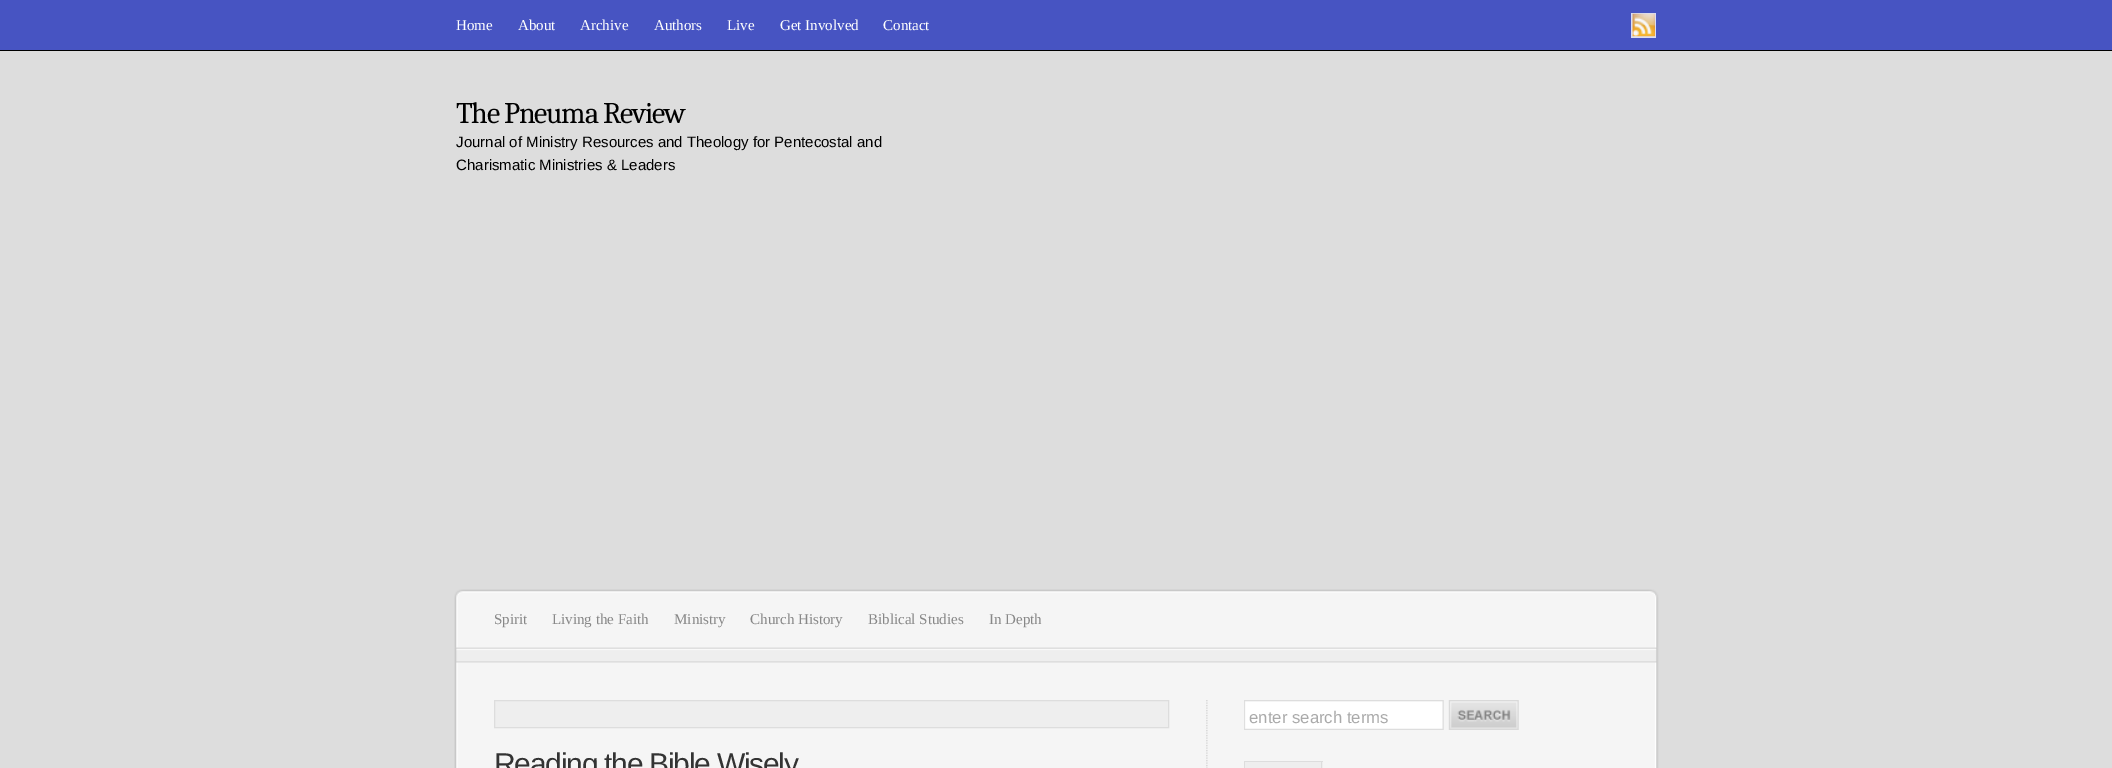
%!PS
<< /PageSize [2112 768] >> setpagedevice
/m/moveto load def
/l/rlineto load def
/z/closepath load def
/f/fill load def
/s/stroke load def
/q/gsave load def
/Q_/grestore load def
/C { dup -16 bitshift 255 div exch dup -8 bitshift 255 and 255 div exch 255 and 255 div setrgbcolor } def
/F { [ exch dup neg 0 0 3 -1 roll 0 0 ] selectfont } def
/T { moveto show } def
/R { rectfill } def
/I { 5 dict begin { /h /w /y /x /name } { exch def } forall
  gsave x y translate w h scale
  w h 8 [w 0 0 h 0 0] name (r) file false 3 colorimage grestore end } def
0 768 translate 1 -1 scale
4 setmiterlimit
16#DDDDDD C
0 0 2112 768 R
16#4754C2 C
0 0 2112 50 R
16#000000 C
0 50 2112 1 R
/LiberationSerif-Regular 15 F
16#FFFFFF C
(Home) 456 30 T
(About) 518 30 T
(Archive) 580 30 T
(Authors) 654 30 T
(Live) 727 30 T
(Get Involved) 780 30 T
(Contact) 883 30 T
16#DADDF3 C
1631 13 25 25 R
(1.rgb) 1632 13 23 24 I
/Caladea-Regular 30 F
16#000000 C
456 123 m -1.25 0 (The Pneuma Review) ashow
/LiberationSans-Regular 15 F
(Journal of Ministry Resources and Theology for Pentecostal and) 456 147 T
(Charismatic Ministries & Leaders) 456 170 T
(3.rgb) 454 647 1205 53 I
(2.rgb) 454 589 1205 59 I
/LiberationSerif-Regular 15 F
16#888888 C
(Spirit) 494 624 T
(Living the Faith) 552 624 T
(Ministry) 674 624 T
(Church History) 750 624 T
(Biblical Studies) 868 624 T
(In Depth) 989 624 T
(4.rgb) 454 700 1205 68 I
(5.rgb) 1206 700 2 68 I
(6.rgb) 1244 700 275 30 I
/LiberationSans-Regular 16.75 F
16#AAAAAA C
(enter search terms) 1249 723 T
16#EEEEEE C
1244 762 79 6 R
16#DDDDDD C
1244 761 79 1 R
1321 761 1 7 R
1244 761 1 7 R
16#EEEEEE C
494.5 700.5 m 674 0 l 0 27 l -674 0 l z q f Q_
16#DDDDDD C
s
/LiberationSans-Regular 30 F
16#333333 C
494 774 m -1.25 0 (Reading the Bible Wisely) ashow
showpage
